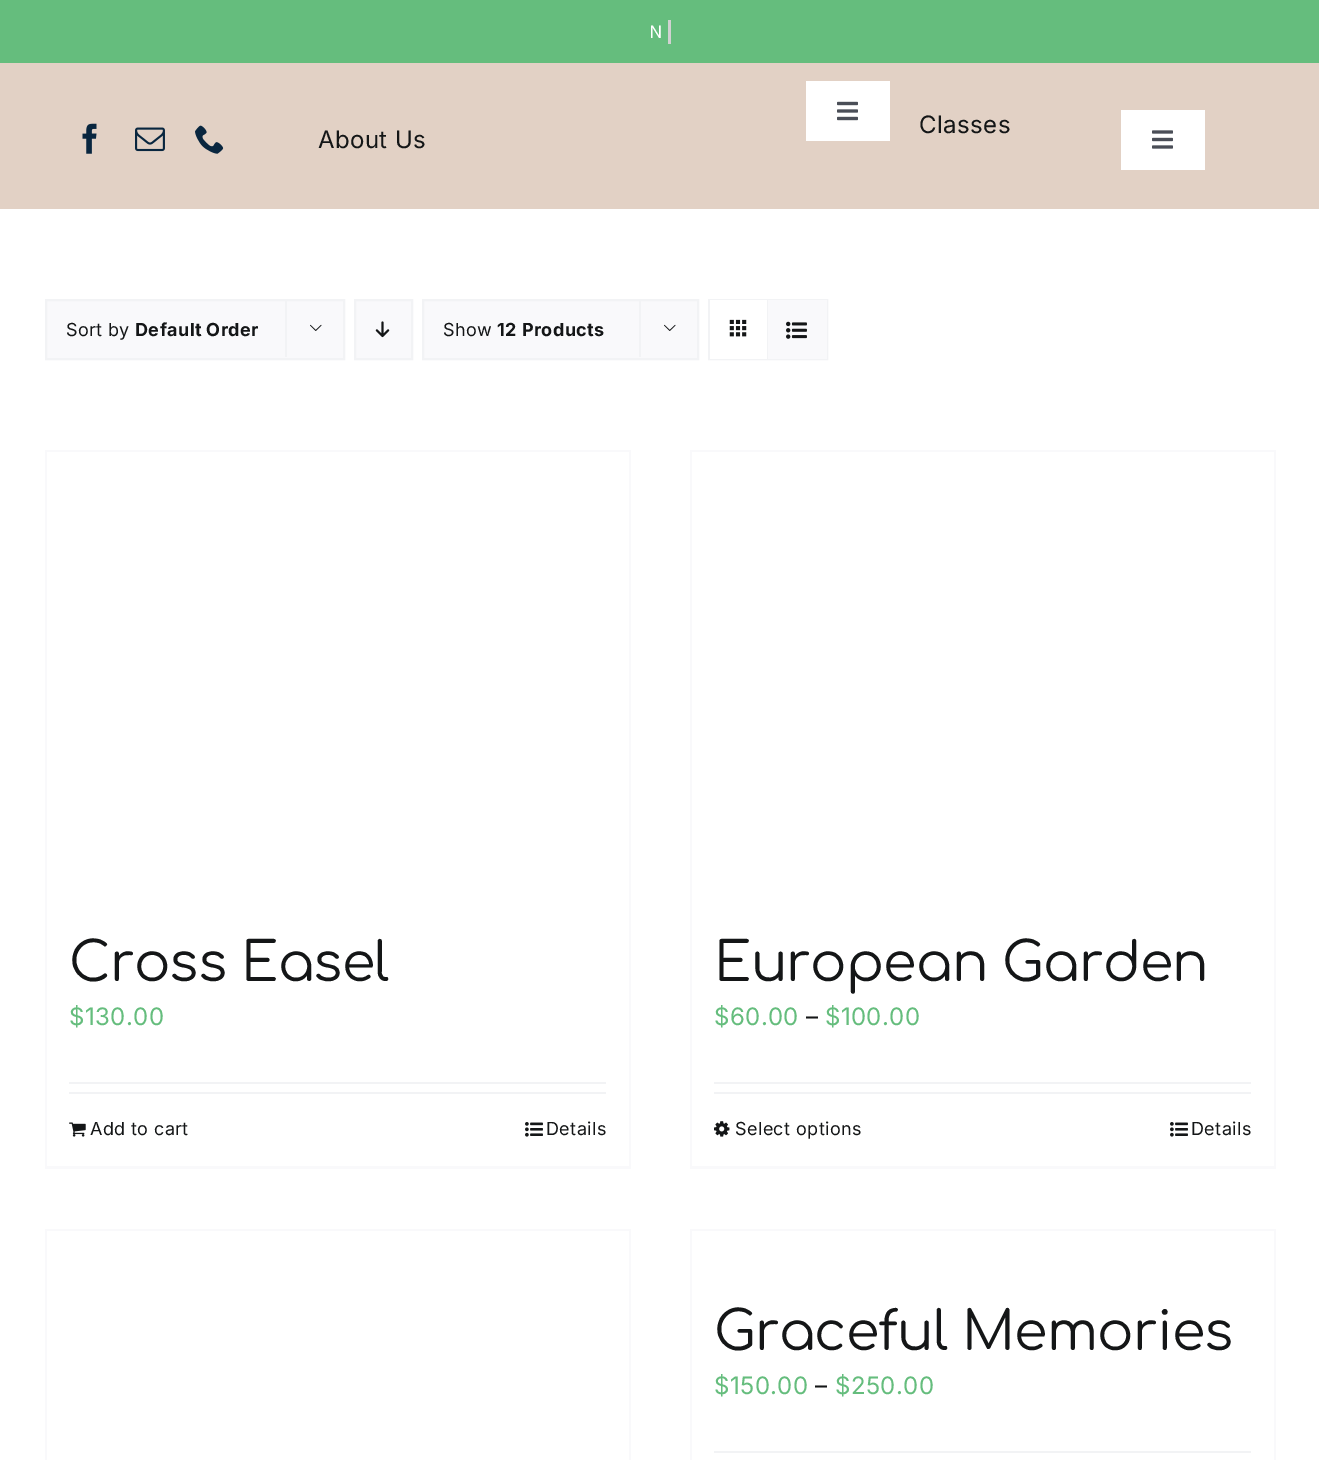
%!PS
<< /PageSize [1319 1460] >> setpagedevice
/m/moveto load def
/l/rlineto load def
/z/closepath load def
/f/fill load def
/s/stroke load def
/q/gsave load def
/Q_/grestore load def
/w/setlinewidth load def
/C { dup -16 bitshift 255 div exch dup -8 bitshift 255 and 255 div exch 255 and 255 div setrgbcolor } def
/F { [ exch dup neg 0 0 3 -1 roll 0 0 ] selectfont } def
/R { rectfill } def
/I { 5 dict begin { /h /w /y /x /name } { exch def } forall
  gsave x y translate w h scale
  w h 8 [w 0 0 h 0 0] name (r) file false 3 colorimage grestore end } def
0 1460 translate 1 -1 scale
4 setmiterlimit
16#FFFFFF C
0 0 1319 1460 R
16#65BD7D C
0 0 1319 63 R
/Karla-Regular 20 F
16#FFFFFF C
649 38 m 1 0 (N) ashow
16#D1D1D1 C
668 20 3 24 R
16#E2D1C5 C
0 63 1319 146 R
(1.rgb) 82 123 15 31 I
(2.rgb) 135 127 30 25 I
(3.rgb) 195 125 29 29 I
/Inter-Regular 24 F
16#141617 C
318 148 m .4 0 (About Us) ashow
16#FFFFFF C
806 81 84 60 R
(4.rgb) 837 101 21 20 I
16#141617 C
919 133 m .4 0 (Classes) ashow
16#FFFFFF C
1121 110 84 60 R
(5.rgb) 1152 130 21 19 I
16#F9F9FB C
46 300 m 298 0 l 0 59 l -298 0 l z q f Q_
16#F2F3F5 C
2 w
s
/Inter-Regular 18 F
16#141617 C
66 336 m .4 0 (Sort by) ashow
/Inter-Bold 18 F
135 336 m .4 0 (Default Order) ashow
16#F2F3F5 C
285 299 2 58 R
(6.rgb) 310 324 12 7 I
16#F9F9FB C
355 300 m 57 0 l 0 59 l -57 0 l z q f Q_
16#F2F3F5 C
s
(7.rgb) 375 321 15 17 I
16#F9F9FB C
423 300 m 275 0 l 0 59 l -275 0 l z q f Q_
16#F2F3F5 C
s
/Inter-Regular 18 F
16#141617 C
443 336 m .4 0 (Show) ashow
/Inter-Bold 18 F
497 336 m .4 0 (12 Products) ashow
16#F2F3F5 C
639 299 2 58 R
(6.rgb) 664 324 12 7 I
709 300 118 59 rectstroke
16#FFFFFF C
710 300 57 59 R
16#F2F3F5 C
767 300 1 59 R
(8.rgb) 729 319 18 18 I
16#F9F9FB C
768 300 59 59 R
(9.rgb) 786 321 21 18 I
45 450 585 2 R
629 450 2 719 R
45 1166 585 3 R
45 450 2 719 R
/Comfortaa-Regular 54 F
16#141617 C
69 981 m -.8 0 (Cross Easel) ashow
/Inter-Regular 24 F
16#65BD7D C
69 1025 m .4 0 ($130.00) ashow
16#F2F3F5 C
69 1082 537 2 R
69 1092 537 2 R
(10.rgb) 69 1122 17 15 I
/Inter-Regular 18 F
16#141617 C
90 1135 m .4 0 (Add to cart) ashow
(11.rgb) 525 1122 18 15 I
546 1135 m .4 0 (Details) ashow
16#F9F9FB C
690 450 585 2 R
1274 450 2 719 R
690 1166 585 3 R
690 450 2 719 R
/Comfortaa-Regular 54 F
16#141617 C
714 981 m -.8 0 (European Garden) ashow
/Inter-Regular 24 F
16#65BD7D C
714 1025 m .4 0 ($60.00) ashow
16#141617 C
806 1025 m .4 0 (–) ashow
16#65BD7D C
825 1025 m .4 0 ($100.00) ashow
16#F2F3F5 C
714 1082 537 2 R
714 1092 537 2 R
(12.rgb) 714 1121 16 16 I
/Inter-Regular 18 F
16#141617 C
735 1135 m .4 0 (Select options) ashow
(11.rgb) 1170 1122 18 15 I
1191 1135 m .4 0 (Details) ashow
16#F9F9FB C
45 1229 585 2 R
629 1229 2 231 R
45 1229 2 231 R
690 1229 585 2 R
1274 1229 2 231 R
690 1229 2 231 R
/Comfortaa-Regular 54 F
16#141617 C
714 1350 m -.8 0 (Graceful Memories) ashow
/Inter-Regular 24 F
16#65BD7D C
714 1394 m .4 0 ($150.00) ashow
16#141617 C
815 1394 m .4 0 (–) ashow
16#65BD7D C
835 1394 m .4 0 ($250.00) ashow
16#F2F3F5 C
714 1451 537 2 R
showpage
